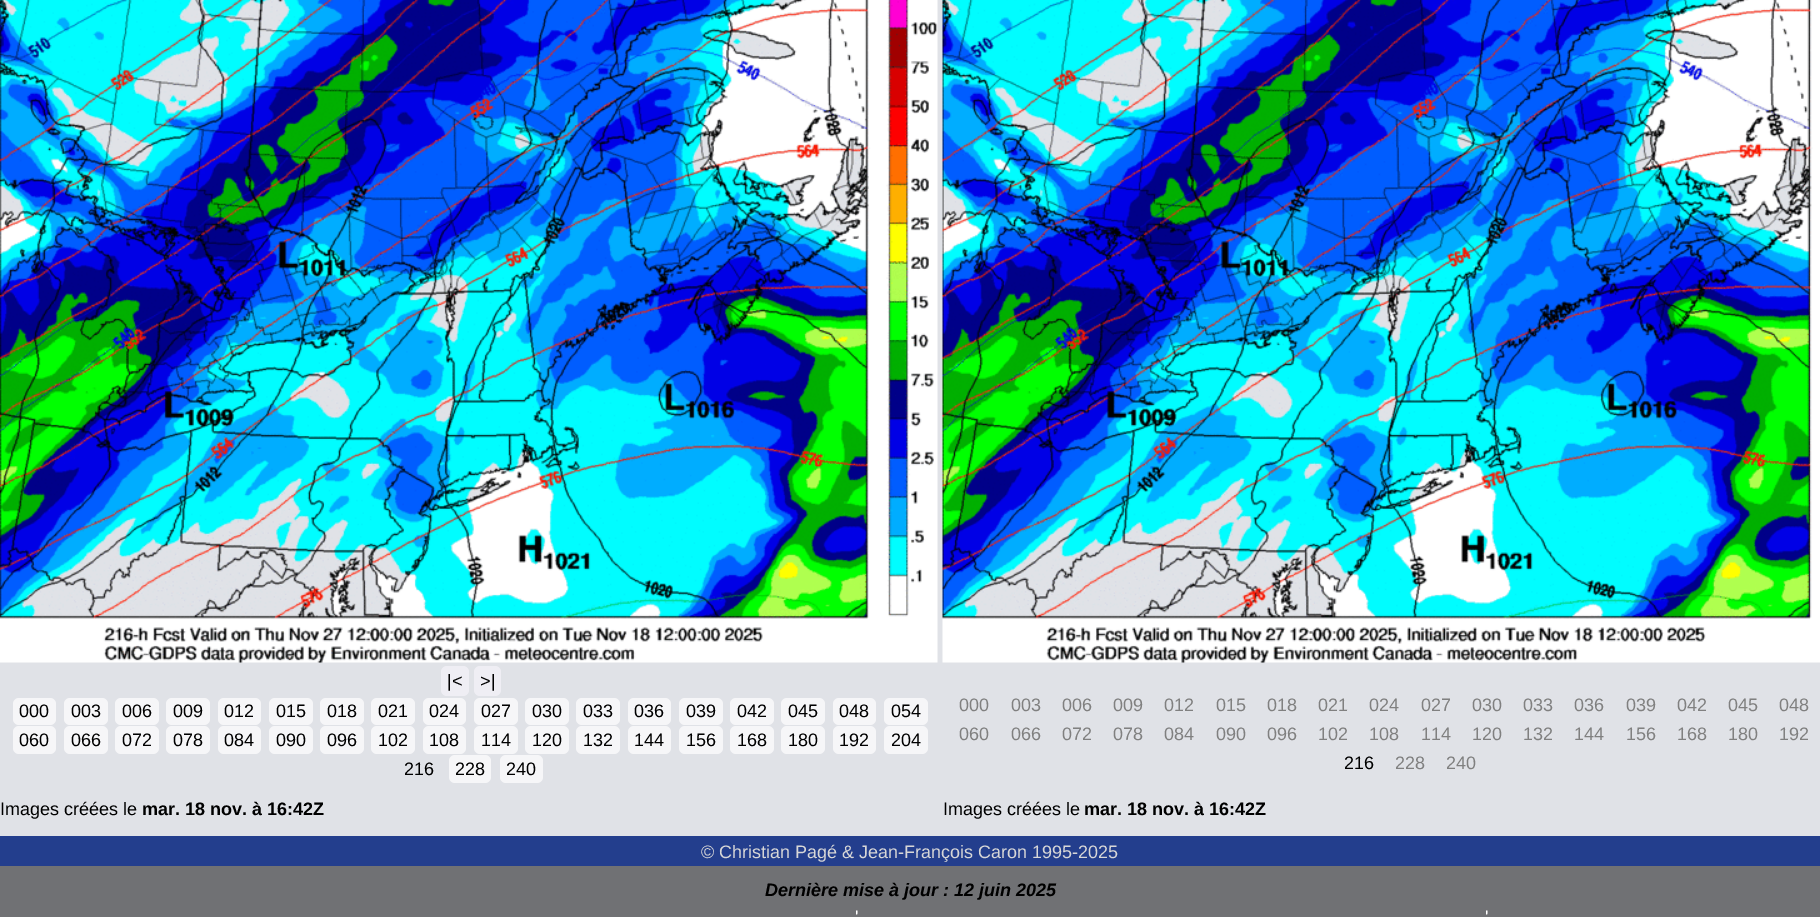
%!PS
<< /PageSize [1820 917] >> setpagedevice
/f/fill load def
/C { dup -16 bitshift 255 div exch dup -8 bitshift 255 and 255 div exch 255 and 255 div setrgbcolor } def
/F { [ exch dup neg 0 0 3 -1 roll 0 0 ] selectfont } def
/T { moveto show } def
/R { rectfill } def
/Q { 5 dict begin { /r /h /w /y /x } { exch def } forall
  x r add y moveto x w add y 2 copy h add r arct x w add y h add x 1 index r arct
  x y h add x y r arct x y 2 copy exch w add exch r arct closepath end } def
/I { 5 dict begin { /h /w /y /x /name } { exch def } forall
  gsave x y translate w h scale
  w h 8 [w 0 0 h 0 0] name (r) file false 3 colorimage grestore end } def
0 917 translate 1 -1 scale
4 setmiterlimit
16#E0E2E7 C
0 0 1820 917 R
(1.rgb) 0 0 938 663 I
(2.rgb) 942 0 878 663 I
16#EFEEF4 C
441 666 28 30 6 Q f
/LiberationSans-Regular 18 F
16#000000 C
(|<) 447 687 T
16#EFEEF4 C
474 666 27 30 6 Q f
16#000000 C
(>|) 480 687 T
16#F6F6F8 C
13 698 43 27 6 Q f
16#000000 C
(000) 19 717 T
16#F6F6F8 C
64 698 44 27 6 Q f
16#000000 C
(003) 71 717 T
16#F6F6F8 C
115 698 44 27 6 Q f
16#000000 C
(006) 122 717 T
16#F6F6F8 C
166 698 44 27 6 Q f
16#000000 C
(009) 173 717 T
16#F6F6F8 C
218 698 43 27 6 Q f
16#000000 C
(012) 224 717 T
16#F6F6F8 C
269 698 44 27 6 Q f
16#000000 C
(015) 276 717 T
16#F6F6F8 C
320 698 44 27 6 Q f
16#000000 C
(018) 327 717 T
16#F6F6F8 C
371 698 44 27 6 Q f
16#000000 C
(021) 378 717 T
16#F6F6F8 C
423 698 43 27 6 Q f
16#000000 C
(024) 429 717 T
16#F6F6F8 C
474 698 44 27 6 Q f
16#000000 C
(027) 481 717 T
16#F6F6F8 C
525 698 44 27 6 Q f
16#000000 C
(030) 532 717 T
16#F6F6F8 C
576 698 44 27 6 Q f
16#000000 C
(033) 583 717 T
16#F6F6F8 C
628 698 43 27 6 Q f
16#000000 C
(036) 634 717 T
16#F6F6F8 C
679 698 44 27 6 Q f
16#000000 C
(039) 686 717 T
16#F6F6F8 C
730 698 44 27 6 Q f
16#000000 C
(042) 737 717 T
16#F6F6F8 C
781 698 44 27 6 Q f
16#000000 C
(045) 788 717 T
16#F6F6F8 C
833 698 43 27 6 Q f
16#000000 C
(048) 839 717 T
16#F6F6F8 C
884 698 44 27 6 Q f
16#000000 C
(054) 891 717 T
16#F6F6F8 C
13 726 43 28 6 Q f
16#000000 C
(060) 19 746 T
16#F6F6F8 C
64 726 44 28 6 Q f
16#000000 C
(066) 71 746 T
16#F6F6F8 C
115 726 44 28 6 Q f
16#000000 C
(072) 122 746 T
16#F6F6F8 C
166 726 44 28 6 Q f
16#000000 C
(078) 173 746 T
16#F6F6F8 C
218 726 43 28 6 Q f
16#000000 C
(084) 224 746 T
16#F6F6F8 C
269 726 44 28 6 Q f
16#000000 C
(090) 276 746 T
16#F6F6F8 C
320 726 44 28 6 Q f
16#000000 C
(096) 327 746 T
16#F6F6F8 C
371 726 44 28 6 Q f
16#000000 C
(102) 378 746 T
16#F6F6F8 C
423 726 43 28 6 Q f
16#000000 C
(108) 429 746 T
16#F6F6F8 C
474 726 44 28 6 Q f
16#000000 C
(114) 481 746 T
16#F6F6F8 C
525 726 44 28 6 Q f
16#000000 C
(120) 532 746 T
16#F6F6F8 C
576 726 44 28 6 Q f
16#000000 C
(132) 583 746 T
16#F6F6F8 C
628 726 43 28 6 Q f
16#000000 C
(144) 634 746 T
16#F6F6F8 C
679 726 44 28 6 Q f
16#000000 C
(156) 686 746 T
16#F6F6F8 C
730 726 44 28 6 Q f
16#000000 C
(168) 737 746 T
16#F6F6F8 C
781 726 44 28 6 Q f
16#000000 C
(180) 788 746 T
16#F6F6F8 C
833 726 43 28 6 Q f
16#000000 C
(192) 839 746 T
16#F6F6F8 C
884 726 44 28 6 Q f
16#000000 C
(204) 891 746 T
(216) 404 775 T
16#F6F6F8 C
449 755 42 28 6 Q f
16#000000 C
(228) 455 775 T
16#F6F6F8 C
500 755 43 28 6 Q f
16#000000 C
(240) 506 775 T
16#808080 C
(000) 959 711 T
(003) 1011 711 T
(006) 1062 711 T
(009) 1113 711 T
(012) 1164 711 T
(015) 1216 711 T
(018) 1267 711 T
(021) 1318 711 T
(024) 1369 711 T
(027) 1421 711 T
(030) 1472 711 T
(033) 1523 711 T
(036) 1574 711 T
(039) 1626 711 T
(042) 1677 711 T
(045) 1728 711 T
(048) 1779 711 T
(060) 959 740 T
(066) 1011 740 T
(072) 1062 740 T
(078) 1113 740 T
(084) 1164 740 T
(090) 1216 740 T
(096) 1267 740 T
(102) 1318 740 T
(108) 1369 740 T
(114) 1421 740 T
(120) 1472 740 T
(132) 1523 740 T
(144) 1574 740 T
(156) 1626 740 T
(168) 1677 740 T
(180) 1728 740 T
(192) 1779 740 T
16#000000 C
(216) 1344 769 T
16#808080 C
(228) 1395 769 T
(240) 1446 769 T
16#000000 C
(Images créées le) 0 815 T
/LiberationSans-Bold 18 F
(mar. 18 nov. à 16:42Z) 142 815 T
/LiberationSans-Regular 18 F
(Images créées le) 943 815 T
/LiberationSans-Bold 18 F
(mar. 18 nov. à 16:42Z) 1084 815 T
16#233E8D C
0 836 1820 30 R
/LiberationSans-Regular 18 F
16#D7D7D7 C
(© Christian Pagé & Jean-François Caron 1995-2025) 701 858 T
16#707174 C
0 866 1820 51 R
/LiberationSans-BoldItalic 18 F
16#000000 C
(Dernière mise à jour : 12 juin 2025) 765 896 T
/LiberationSans-Regular 18 F
16#FFFFFF C
(') 855 923 T
(') 1485 923 T
showpage
